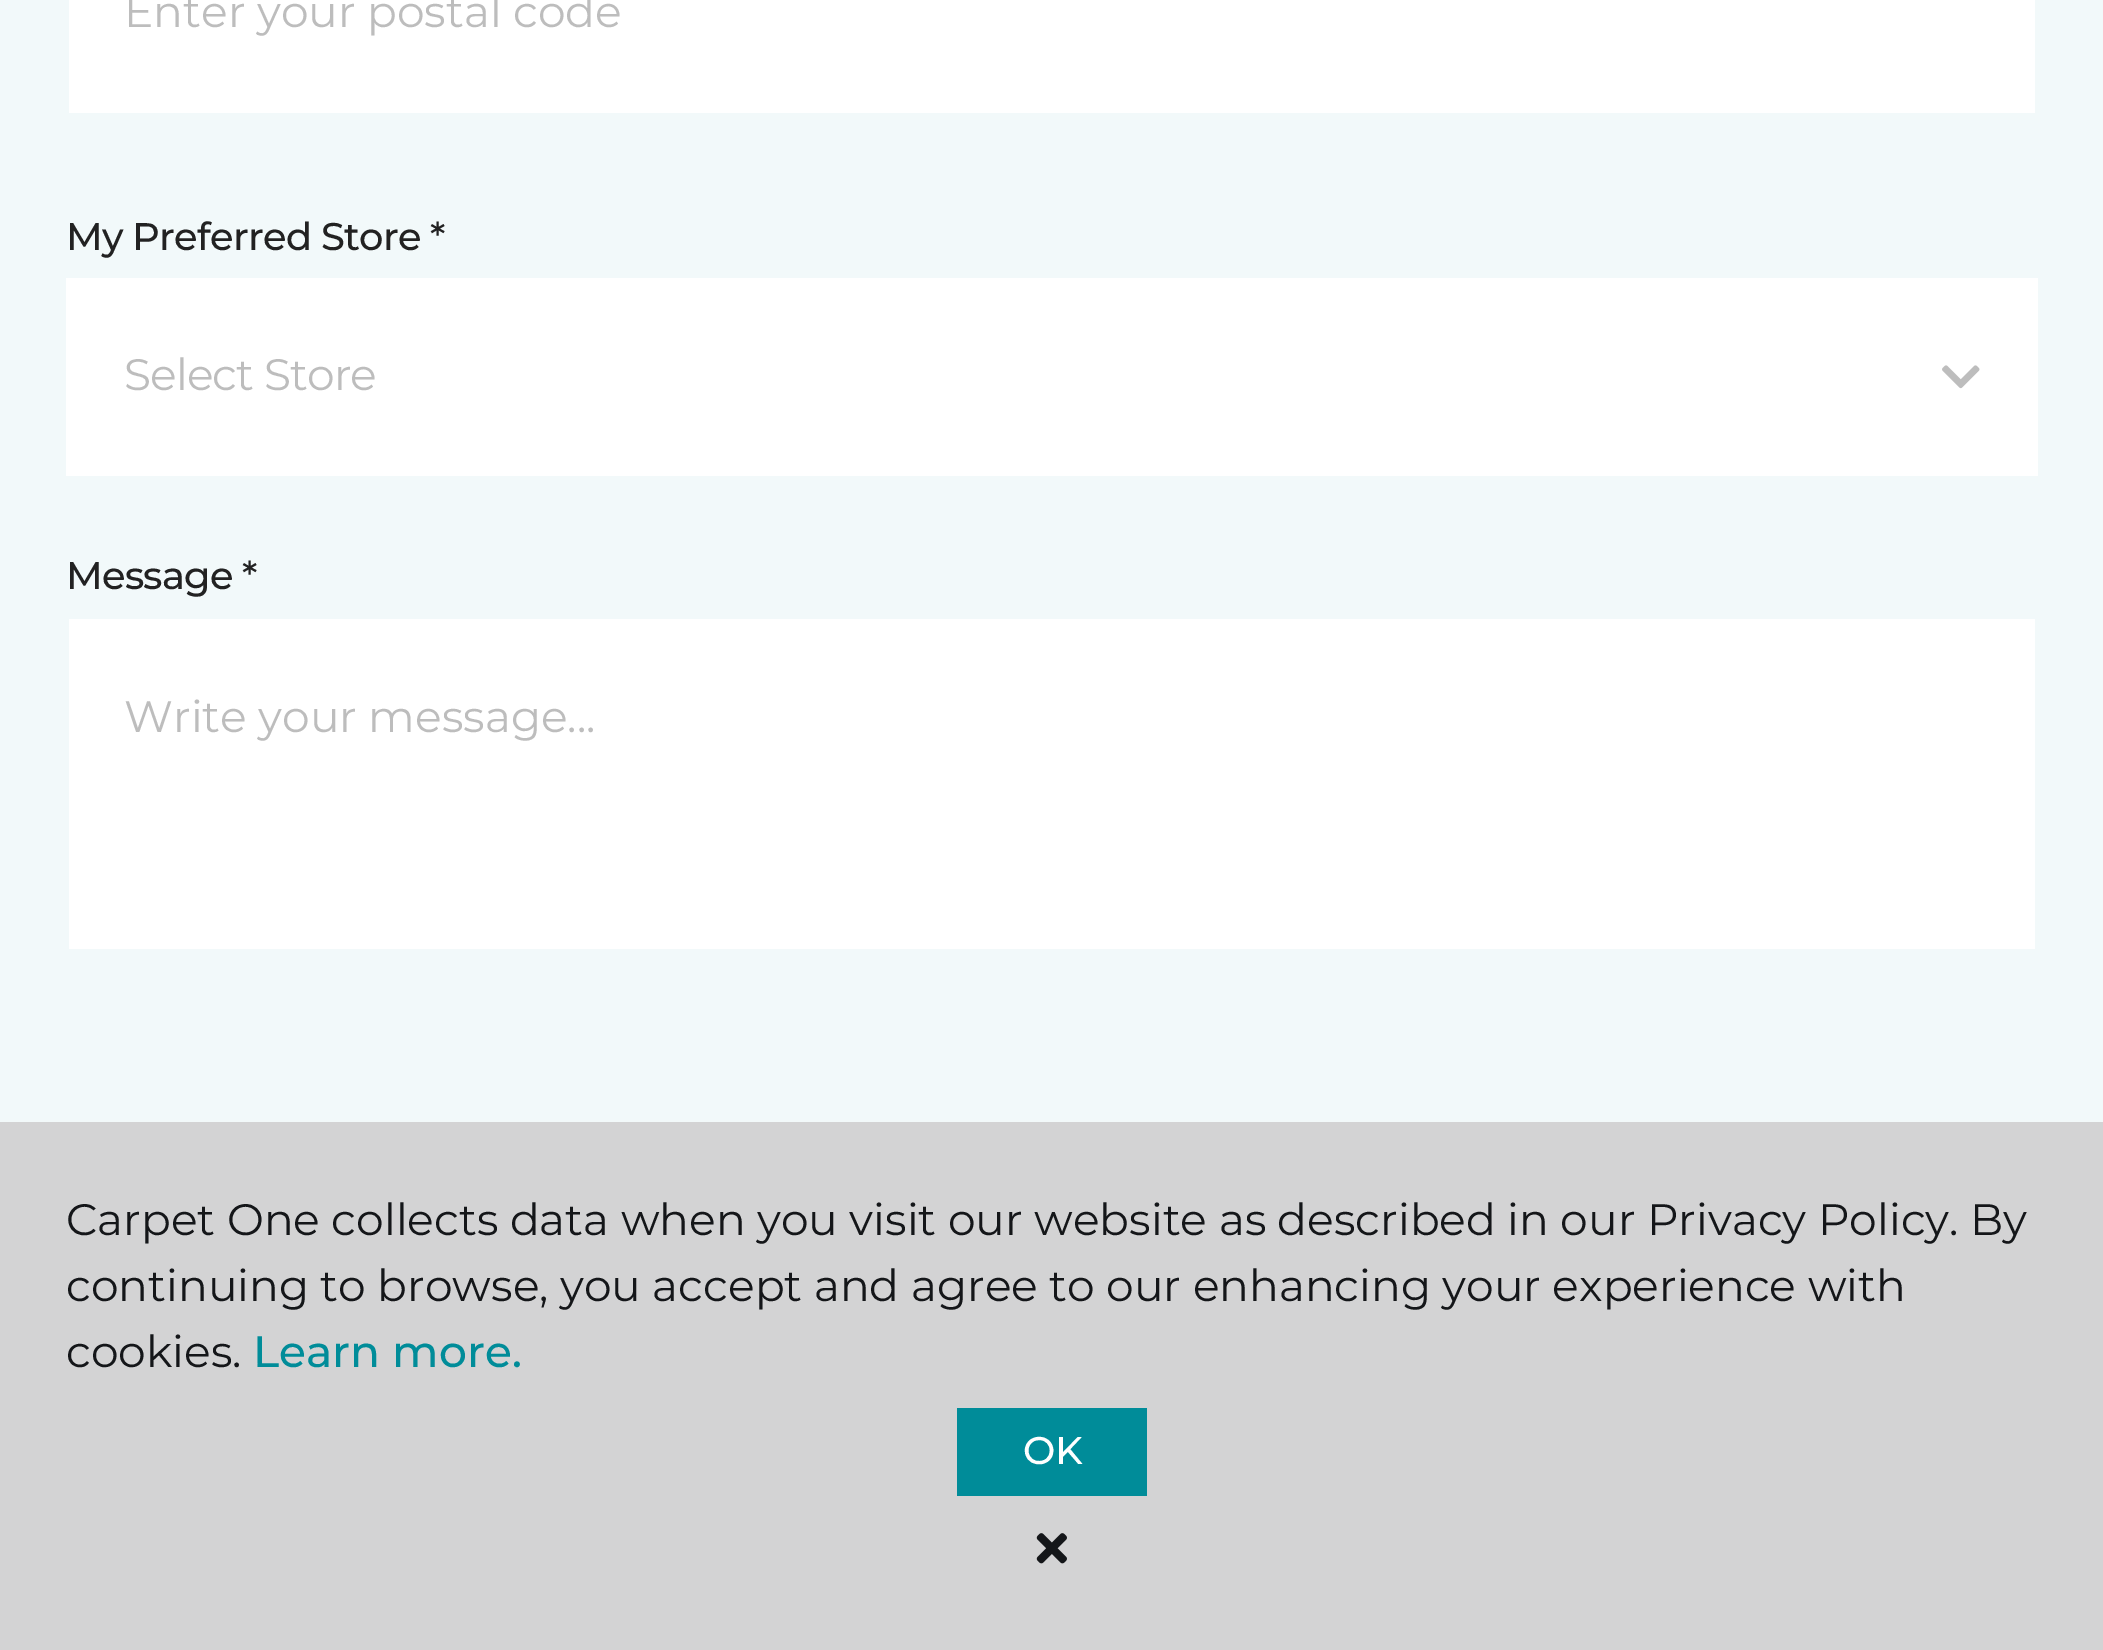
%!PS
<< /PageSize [2103 1650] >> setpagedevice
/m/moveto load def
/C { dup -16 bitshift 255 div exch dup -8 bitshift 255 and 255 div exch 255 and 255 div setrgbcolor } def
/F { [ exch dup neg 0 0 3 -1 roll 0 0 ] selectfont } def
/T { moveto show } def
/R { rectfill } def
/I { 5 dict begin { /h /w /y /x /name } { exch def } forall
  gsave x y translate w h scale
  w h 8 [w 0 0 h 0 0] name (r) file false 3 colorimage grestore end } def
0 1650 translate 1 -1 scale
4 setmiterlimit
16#F2F9FA C
0 0 2103 1650 R
16#FFFFFF C
69 0 1966 113 R
/Montserrat-Regular 44 F
16#BDBDBD C
(Enter your postal code) 124 27 T
/Montserrat-Medium 38.5 F
16#222222 C
66 250 m -.75 0 (My Preferred Store *) ashow
16#FFFFFF C
66 278 1972 198 R
/Montserrat-Regular 44 F
16#BDBDBD C
124 390 m -.9 0 (Select Store) ashow
(1.rgb) 1942 365 38 24 I
/Montserrat-Medium 38.5 F
16#222222 C
66 589 m -.75 0 (Message *) ashow
16#FFFFFF C
69 619 1966 330 R
/Montserrat-Regular 44 F
16#BDBDBD C
(Write your message...) 124 732 T
16#D3D3D4 C
0 1122 2103 528 R
16#141619 C
(Carpet One collects data when you visit our website as described in our Privacy Policy. By) 66 1235 T
(continuing to browse, you accept and agree to our enhancing your experience with) 66 1301 T
(cookies.) 66 1367 T
/Montserrat-Medium 44 F
16#008C99 C
(Learn more.) 253 1367 T
957 1408 190 88 R
/Montserrat-Medium 38.5 F
16#FFFFFF C
1023 1464 m -.75 0 (OK) ashow
(2.rgb) 1036 1533 31 31 I
showpage
